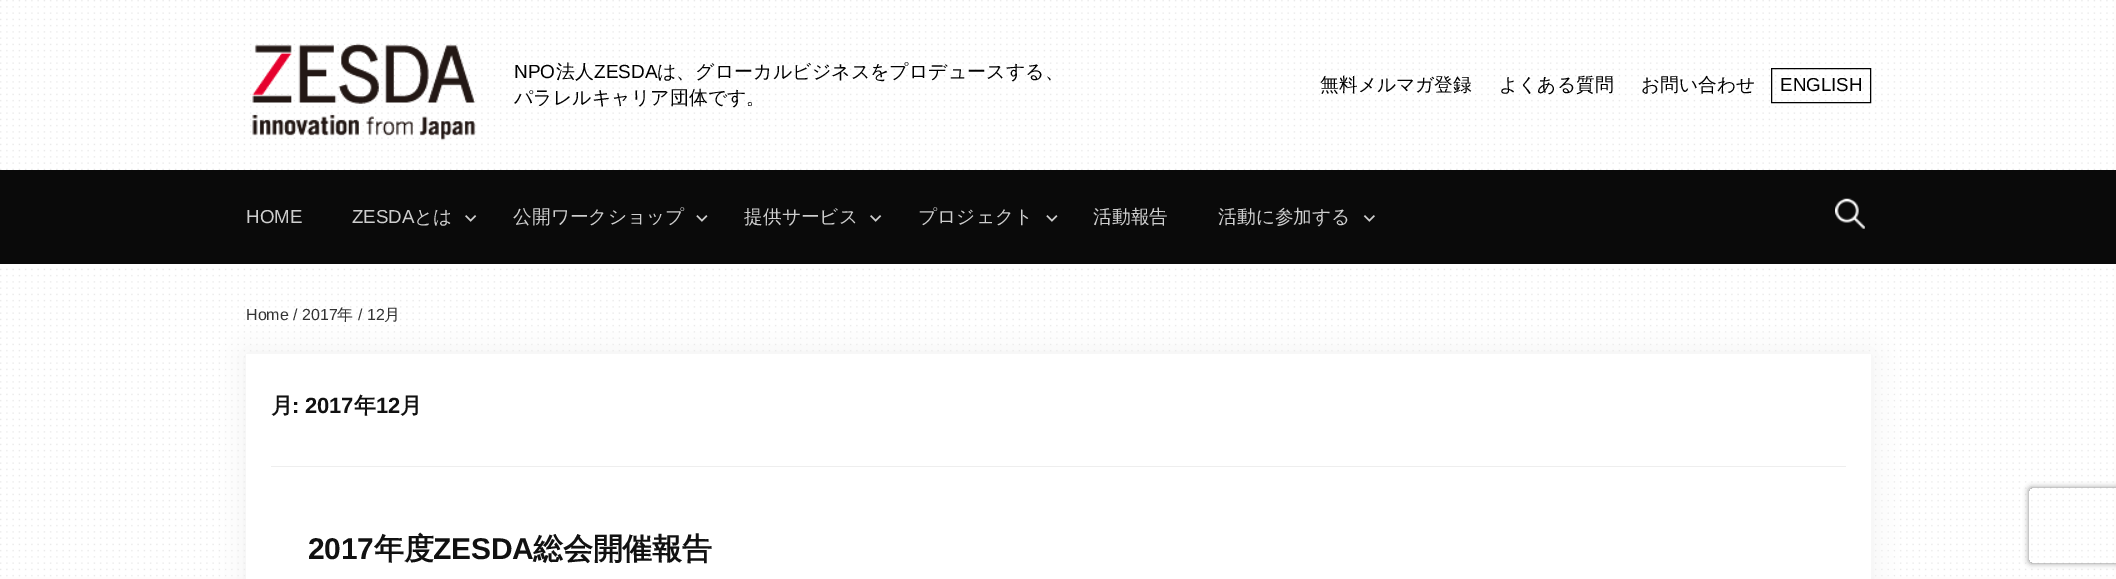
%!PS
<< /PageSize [2116 579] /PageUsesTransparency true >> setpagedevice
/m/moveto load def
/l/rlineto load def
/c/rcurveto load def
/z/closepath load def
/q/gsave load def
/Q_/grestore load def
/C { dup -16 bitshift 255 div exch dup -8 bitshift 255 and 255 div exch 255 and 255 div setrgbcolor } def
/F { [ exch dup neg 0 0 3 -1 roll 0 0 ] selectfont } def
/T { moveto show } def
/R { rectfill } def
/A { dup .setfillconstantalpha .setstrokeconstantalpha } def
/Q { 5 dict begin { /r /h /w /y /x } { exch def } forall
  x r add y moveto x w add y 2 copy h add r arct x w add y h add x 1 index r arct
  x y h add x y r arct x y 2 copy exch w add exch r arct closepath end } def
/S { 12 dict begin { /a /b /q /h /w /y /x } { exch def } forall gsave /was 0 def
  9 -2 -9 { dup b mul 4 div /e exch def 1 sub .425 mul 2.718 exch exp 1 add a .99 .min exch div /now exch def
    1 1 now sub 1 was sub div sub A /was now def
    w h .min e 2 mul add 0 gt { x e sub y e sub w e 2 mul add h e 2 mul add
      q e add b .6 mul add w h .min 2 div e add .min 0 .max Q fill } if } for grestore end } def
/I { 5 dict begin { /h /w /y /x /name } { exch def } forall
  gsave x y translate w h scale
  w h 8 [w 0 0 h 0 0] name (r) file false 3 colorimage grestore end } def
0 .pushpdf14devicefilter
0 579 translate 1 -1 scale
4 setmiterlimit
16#FFFCFC C
0 0 2116 579 R
(1.rgb) 0 0 2114 577 I
(2.rgb) 252 43 224 98 I
/LiberationSans-Regular 19 F
16#000000 C
(NPO) 514 78 T
/WenQuanYiZenHei-Medium 19 F
(法人) 556 78 T
/LiberationSans-Regular 19 F
(ZESDA) 594 78 T
/WenQuanYiZenHei-Medium 19 F
(は、グローカルビジネスをプロデュースする、) 657 78 T
(パラレルキャリア団体です。) 514 104 T
/WenQuanYiZenHei-Medium 18.75 F
(無料メルマガ登録) 1320 91 T
(よくある質問) 1499 91 T
(お問い合わせ) 1641 91 T
1771.5 68.5 99 34 rectstroke
/LiberationSans-Regular 18.75 F
(ENGLISH) 1780 91 T
16#0A0A0A C
0 170 2116 94 R
16#CECECE C
(HOME) 246 223 T
(ZESDA) 352 223 T
/WenQuanYiZenHei-Medium 18.75 F
(とは) 414 223 T
(3.rgb) 465 215 12 7 I
(公開ワークショップ) 513 223 T
(4.rgb) 696 215 12 7 I
(提供サービス) 744 223 T
(3.rgb) 870 215 12 7 I
(プロジェクト) 918 223 T
(4.rgb) 1046 215 12 7 I
(活動報告) 1093 223 T
(活動に参加する) 1218 223 T
(5.rgb) 1363 215 12 7 I
(6.rgb) 1835 198 30 31 I
16#EEEEEE C
246 354 1625 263 0 12.5 1 S
/LiberationSans-Regular 16 F
16#333333 C
(Home / 2017) 246 320 T
/WenQuanYiZenHei-Medium 16 F
(年) 337 320 T
/LiberationSans-Regular 16 F
(/ 12) 358 320 T
/WenQuanYiZenHei-Medium 16 F
(月) 384 320 T
16#FFFFFF C
246 354 1625 225 R
16#EEEEEE C
271 466 1575 1 R
/WenQuanYiZenHei-Bold 22 F
16#111111 C
271 413 m -.25 0 (月) ashow
/LiberationSans-Bold 22 F
292 413 m -.25 0 (: 2017) ashow
/WenQuanYiZenHei-Bold 22 F
354 413 m -.25 0 (年) ashow
/LiberationSans-Bold 22 F
376 413 m -.25 0 (12) ashow
/WenQuanYiZenHei-Bold 22 F
400 413 m -.25 0 (月) ashow
/LiberationSans-Bold 30 F
308 559 m -.25 0 (2017) ashow
/WenQuanYiZenHei-Bold 30 F
374 559 m -.25 0 (年度) ashow
/LiberationSans-Bold 30 F
433 559 m -.25 0 (ZESDA) ashow
/WenQuanYiZenHei-Bold 30 F
533 559 m -.25 0 (総会開催報告) ashow
q
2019 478 m 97 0 l 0 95 l -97 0 l z 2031.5 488 m 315 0 l 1.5 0 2.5 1 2.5 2.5 c 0 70 l 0 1.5 -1 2.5 -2.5 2.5 c -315 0 l -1.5 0 -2.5 -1 -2.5 -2.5 c 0 -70 l 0 -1.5 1 -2.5 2.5 -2.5 c z eoclip newpath
16#808080 C
2029 488 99 75 2.5 3 1 S
Q_
.poppdf14devicefilter showpage
